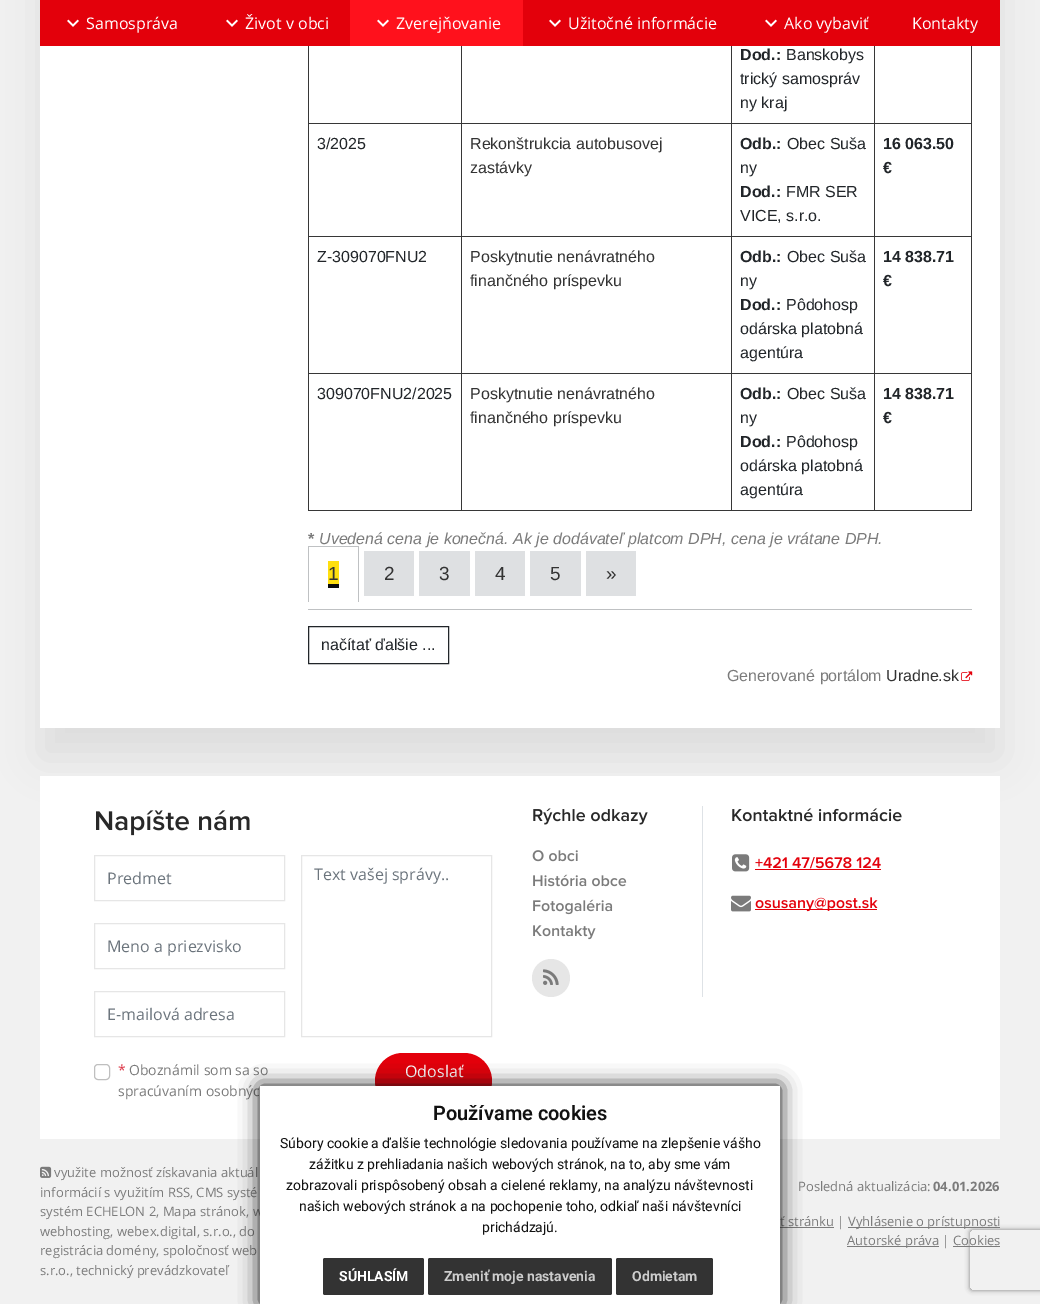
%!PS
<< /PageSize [1040 1304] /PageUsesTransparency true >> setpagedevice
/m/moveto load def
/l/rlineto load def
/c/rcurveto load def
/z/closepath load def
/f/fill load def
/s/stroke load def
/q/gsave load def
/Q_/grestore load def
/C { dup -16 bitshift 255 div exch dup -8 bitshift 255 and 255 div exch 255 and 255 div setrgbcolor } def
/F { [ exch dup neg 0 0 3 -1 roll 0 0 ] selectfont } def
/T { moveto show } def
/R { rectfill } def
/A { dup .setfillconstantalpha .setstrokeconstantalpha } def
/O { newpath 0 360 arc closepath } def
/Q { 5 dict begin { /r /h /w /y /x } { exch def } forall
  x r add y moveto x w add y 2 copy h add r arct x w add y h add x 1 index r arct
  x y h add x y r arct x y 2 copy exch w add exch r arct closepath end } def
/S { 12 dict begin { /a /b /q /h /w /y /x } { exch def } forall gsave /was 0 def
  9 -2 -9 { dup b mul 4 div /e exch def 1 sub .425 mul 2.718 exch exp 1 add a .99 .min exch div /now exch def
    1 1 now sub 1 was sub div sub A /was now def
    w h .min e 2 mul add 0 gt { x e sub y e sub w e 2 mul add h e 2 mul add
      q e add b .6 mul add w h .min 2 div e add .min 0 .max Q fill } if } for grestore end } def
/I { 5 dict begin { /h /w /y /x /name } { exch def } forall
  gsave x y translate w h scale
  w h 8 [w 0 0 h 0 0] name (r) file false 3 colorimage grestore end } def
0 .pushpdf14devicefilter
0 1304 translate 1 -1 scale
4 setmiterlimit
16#F1F1F1 C
0 0 1040 1304 R
16#000000 C
40 -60 960 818 0 20 .07 S
16#E3000B C
40 0 960 46 R
(1.rgb) 67 19 12 8 I
/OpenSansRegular-Regular 16 F
16#FFFFFF C
(Samospráva) 86 29 T
(1.rgb) 226 19 12 8 I
(Život v obci) 245 29 T
16#FF111C C
350 0 173 46 R
(2.rgb) 377 19 12 8 I
16#FFFFFF C
(Zverejňovanie) 396 29 T
(1.rgb) 549 19 12 8 I
(Užitočné informácie) 568 29 T
(1.rgb) 765 19 12 8 I
(Ako vybaviť) 784 29 T
(Kontakty) 912 29 T
40 46 960 682 R
/LiberationSans-Bold 16 F
16#212529 C
(Dod.:) 740 60 T
/LiberationSans-Regular 16 F
(Banskobys) 786 60 T
(trický samospráv) 740 84 T
(ny kraj) 740 108 T
16#373737 C
308 123 664 1 R
16#212529 C
(3/2025) 317 149 T
16#333333 C
(Rekonštrukcia autobusovej) 470 149 T
(zastávky) 470 173 T
/LiberationSans-Bold 16 F
16#212529 C
(Odb.:) 740 149 T
/LiberationSans-Regular 16 F
(Obec Suša) 787 149 T
(ny) 740 173 T
/LiberationSans-Bold 16 F
(Dod.:) 740 197 T
/LiberationSans-Regular 16 F
(FMR SER) 786 197 T
(VICE, s.r.o.) 740 221 T
/LiberationSans-Bold 16 F
(16 063.50) 883 149 T
(€) 883 173 T
16#373737 C
308 236 664 1 R
/LiberationSans-Regular 16 F
16#212529 C
(Z-309070FNU2) 317 262 T
16#333333 C
(Poskytnutie nenávratného) 470 262 T
(finančného príspevku) 470 286 T
/LiberationSans-Bold 16 F
16#212529 C
(Odb.:) 740 262 T
/LiberationSans-Regular 16 F
(Obec Suša) 787 262 T
(ny) 740 286 T
/LiberationSans-Bold 16 F
(Dod.:) 740 310 T
/LiberationSans-Regular 16 F
(Pôdohosp) 786 310 T
(odárska platobná) 740 334 T
(agentúra) 740 358 T
/LiberationSans-Bold 16 F
(14 838.71) 883 262 T
(€) 883 286 T
16#373737 C
308 373 664 1 R
308 510 664 1 R
308 46 1 465 R
/LiberationSans-Regular 16 F
16#212529 C
(309070FNU2/2025) 317 399 T
16#373737 C
461 46 1 465 R
16#333333 C
(Poskytnutie nenávratného) 470 399 T
(finančného príspevku) 470 423 T
16#373737 C
731 46 1 465 R
/LiberationSans-Bold 16 F
16#212529 C
(Odb.:) 740 399 T
/LiberationSans-Regular 16 F
(Obec Suša) 787 399 T
(ny) 740 423 T
/LiberationSans-Bold 16 F
(Dod.:) 740 447 T
/LiberationSans-Regular 16 F
(Pôdohosp) 786 447 T
(odárska platobná) 740 471 T
(agentúra) 740 495 T
16#373737 C
971 46 1 465 R
874 46 1 465 R
/LiberationSans-Bold 16 F
16#212529 C
(14 838.71) 883 399 T
(€) 883 423 T
16#7B7B7B C
(*) 308 544 T
/LiberationSans-Italic 16 F
(Uvedená cena je konečná. Ak je dodávateľ platcom DPH, cena je vrátane DPH.) 319 544 T
16#BFC1C3 C
308 609 664 1 R
308 546 51 1 R
358 546 1 56 R
308 546 1 56 R
16#FFDF0F C
328 561 11 23 R
/LiberationSans-Regular 19 F
16#333333 C
(1) 328 580 T
16#0B0C0C C
328 584 11 4 R
16#DEE0E2 C
364 551 50 45 R
16#333333 C
(2) 384 580 T
16#DEE0E2 C
419 551 51 45 R
16#333333 C
(3) 439 580 T
16#DEE0E2 C
475 551 50 45 R
16#333333 C
(4) 495 580 T
16#DEE0E2 C
530 551 51 45 R
16#333333 C
(5) 550 580 T
16#DEE0E2 C
586 551 50 45 R
16#333333 C
(») 606 580 T
16#212529 C
308.5 626.5 140 37 rectstroke
/LiberationSans-Regular 16 F
(načítať ďalšie ...) 321 650 T
16#7B7B7B C
(Generované portálom) 727 681 T
16#333333 C
(Uradne.sk) 886 681 T
(3.rgb) 961 671 12 10 I
16#FFFFFF C
40 776 960 363 R
(4.rgb) 96 810 154 26 I
16#E6E6E6 C
94.5 855.5 190 45 rectstroke
/OpenSansRegular-Regular 16 F
16#6C757D C
(Predmet) 107 884 T
16#E6E6E6 C
94.5 923.5 190 45 rectstroke
16#6C757D C
(Meno a priezvisko) 107 952 T
16#E6E6E6 C
94.5 991.5 190 45 rectstroke
16#6C757D C
(E-mailová adresa) 107 1020 T
16#E6E6E6 C
301.5 855.5 190 181 rectstroke
16#6C757D C
(Text vašej správy..) 314 880 T
16#BFBFBF C
94.5 1064.5 15 15 3.5 Q s
/OpenSansRegular-Regular 14 F
16#DC3545 C
(*) 118 1075 T
16#7B7B7B C
(Oboznámil som sa so) 129 1075 T
(spracúvaním osobnýc) 118 1096 T
16#E3000B C
375 1053 117 56 28 Q f
/OpenSansRegular-Regular 16 F
16#FFFFFF C
(Odoslať) 405 1077 T
16#DEE2E6 C
702 806 1 191 R
(5.rgb) 533 808 115 17 I
(6.rgb) 532 850 46 12 I
(7.rgb) 533 874 94 13 I
(8.rgb) 533 899 80 16 I
(9.rgb) 533 925 63 15 I
16#E6E6E6 C
551 978 19 O f
(10.rgb) 543 969 16 16 I
(11.rgb) 732 808 170 14 I
(12.rgb) 732 854 18 18 I
(13.rgb) 755 857 126 12 I
16#E3000B C
755 869 126 1 R
(14.rgb) 731 895 20 17 I
755 909 122 1 R
(15.rgb) 755 897 123 15 I
(16.rgb) 40 1166 12 12 I
/OpenSansRegular-Regular 13 F
16#7B7B7B C
(využite možnosť získavania aktuál) 54 1177 T
(informácií s využitím RSS, CMS systé) 40 1197 T
(systém ECHELON 2, Mapa stránok, w) 40 1216 T
(webhosting, webex.digital, s.r.o., do) 40 1236 T
(registrácia domény, spoločnosť web) 40 1255 T
(s.r.o., technický prevádzkovateľ) 40 1275 T
(Posledná aktualizácia:) 798 1191 T
/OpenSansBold-Bold 13 F
(04.01.2026) 933 1191 T
780 1227 54 1 R
/OpenSansRegular-Regular 13 F
(ť stránku |) 780 1226 T
848 1227 152 1 R
(Vyhlásenie o prístupnosti) 848 1226 T
847 1246 92 1 R
(Autorské práva | Cookies) 847 1245 T
953 1246 47 1 R
16#111111 C
260 1086 520 218 0 10 1 S
16#FFFFFF C
260 1086 520 218 R
/Roboto-SemiBold 20 F
16#111111 C
(Používame cookies) 433 1120 T
/Roboto-Regular 14 F
(Súbory cookie a ďalšie technológie sledovania používame na zlepšenie vášho) 280 1148 T
(zážitku z prehliadania našich webových stránok, na to, aby sme vám) 309 1169 T
(zobrazovali prispôsobený obsah a cielené reklamy, na analýzu návštevnosti) 286 1190 T
(našich webových stránok a na pochopenie toho, odkiaľ naši návštevníci) 299 1211 T
(prichádzajú.) 482 1232 T
16#333333 C
323 1258 101 37 2 Q f
/Roboto-Bold 14 F
16#FFFFFF C
(SÚHLASÍM) 339 1281 T
16#333333 C
428 1258 184 37 2 Q f
16#CCCCCC C
(Zmeniť moje nastavenia) 444 1281 T
16#333333 C
616 1258 97 37 2 Q f
16#CCCCCC C
(Odmietam) 632 1281 T
q
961 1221 m 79 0 l 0 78 l -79 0 l z 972 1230 m 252 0 l 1 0 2 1 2 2 c 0 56 l 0 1 -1 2 -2 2 c -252 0 l -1 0 -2 -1 -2 -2 c 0 -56 l 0 -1 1 -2 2 -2 c z eoclip newpath
16#808080 C
970 1230 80 60 2 2.5 1 S
Q_
.poppdf14devicefilter showpage
